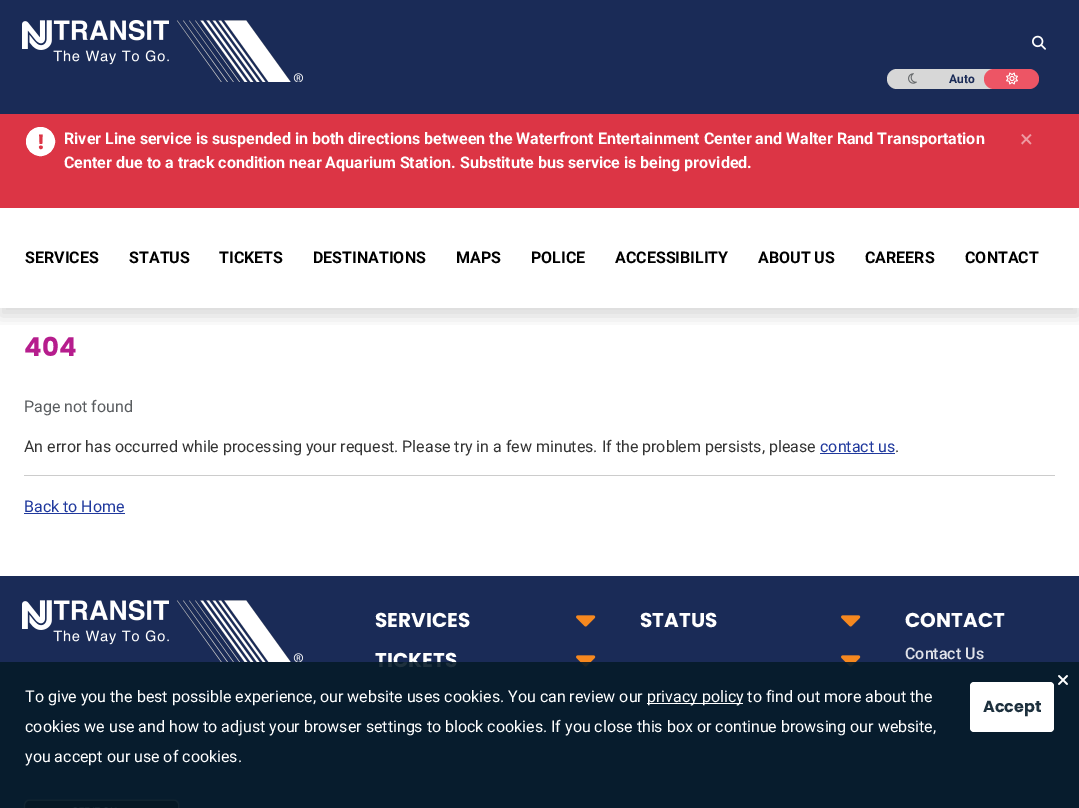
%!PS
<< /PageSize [1079 808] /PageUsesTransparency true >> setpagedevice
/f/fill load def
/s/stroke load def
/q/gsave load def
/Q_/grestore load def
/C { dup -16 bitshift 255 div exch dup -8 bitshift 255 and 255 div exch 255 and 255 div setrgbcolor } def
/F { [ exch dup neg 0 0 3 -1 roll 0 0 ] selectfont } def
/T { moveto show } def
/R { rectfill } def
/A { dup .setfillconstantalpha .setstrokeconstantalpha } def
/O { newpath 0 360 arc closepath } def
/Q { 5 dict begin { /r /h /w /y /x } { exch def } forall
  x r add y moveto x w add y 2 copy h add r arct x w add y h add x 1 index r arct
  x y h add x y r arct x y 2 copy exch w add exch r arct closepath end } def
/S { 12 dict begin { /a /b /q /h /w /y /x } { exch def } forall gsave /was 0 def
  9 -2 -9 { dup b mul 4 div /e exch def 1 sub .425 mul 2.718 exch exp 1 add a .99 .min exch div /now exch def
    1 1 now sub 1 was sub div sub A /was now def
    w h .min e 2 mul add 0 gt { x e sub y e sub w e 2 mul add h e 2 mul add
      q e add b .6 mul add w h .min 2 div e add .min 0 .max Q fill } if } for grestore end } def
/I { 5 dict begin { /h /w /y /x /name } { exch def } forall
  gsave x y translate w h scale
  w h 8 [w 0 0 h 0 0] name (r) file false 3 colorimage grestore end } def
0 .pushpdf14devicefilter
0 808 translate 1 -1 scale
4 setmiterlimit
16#FFFFFF C
0 0 1079 808 R
q
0 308 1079 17 rectclip
16#000000 C
0 8 1079 308 0 8 .15 S
Q_
16#1A2B57 C
0 0 1079 114 R
(1.rgb) 22 20 281 62 I
(2.rgb) 1032 35 14 15 I
16#D7D7D7 C
887 69 150 20 10 Q f
16#ED5565 C
984 69 55 20 10 Q f
(3.rgb) 908 73 9 11 I
/Roboto-Bold 12 F
16#1A2B57 C
(Auto) 949 83 T
(4.rgb) 1006 72 12 13 I
16#DC3545 C
0 114 1079 94 R
16#FFFFFF C
40.5 141.5 14 O q f Q_
s
/Poppins-Bold 20 F
16#DC3545 C
(!) 37 149 T
/Roboto-Bold 16 F
16#FFFFFF C
(River Line service is suspended in both directions between the Waterfront Entertainment Center and Walter Rand Transportation) 64 144 T
(Center due to a track condition near Aquarium Station. Substitute bus service is being provided.) 64 168 T
/Roboto-Regular 24 F
16#EE9AA2 C
(×) 1020 147 T
/Roboto-Bold 16 F
16#000000 C
(SERVICES) 25 263 T
(STATUS) 129 263 T
(TICKETS) 219 263 T
(DESTINATIONS) 313 263 T
(MAPS) 456 263 T
(POLICE) 531 263 T
(ACCESSIBILITY) 615 263 T
(ABOUT US) 758 263 T
(CAREERS) 865 263 T
(CONTACT) 965 263 T
/Poppins-Bold 26 F
16#B61D8D C
(404) 24 356 T
/Roboto-Regular 16 F
16#595C5F C
(Page not found) 24 412 T
16#333333 C
(An error has occurred while processing your request. Please try in a few minutes. If the problem persists, please) 24 452 T
16#20399D C
(contact us) 820 452 T
820 453 75 1 R
16#333333 C
(.) 895 452 T
16#CCCCCC C
24 475 1031 1 R
16#20399D C
(Back to Home) 24 512 T
24 513 101 1 R
16#1A2B57 C
0 576 1079 232 R
(1.rgb) 22 600 281 62 I
(5.rgb) 23 799 157 9 I
/Poppins-Bold 20 F
16#FFFFFF C
(SERVICES) 375 627 T
(6.rgb) 576 615 20 12 I
(TICKETS) 375 667 T
(6.rgb) 576 655 20 12 I
(STATUS) 640 627 T
(6.rgb) 841 615 20 12 I
(6.rgb) 841 655 20 12 I
(CONTACT) 905 627 T
/Roboto-Medium 16 F
16#E1E3E9 C
(Contact Us) 905 659 T
0.9 A
16#051A28 C
0 662 1079 146 R
1 A
(7.rgb) 1058 675 10 10 I
/Roboto-Regular 16 F
16#FFFFFF C
(To give you the best possible experience, our website uses cookies. You can review our) 25 702 T
647 703 96 1 R
(privacy policy to find out more about the) 647 702 T
(cookies we use and how to adjust your browser settings to block cookies. If you close this box or continue browsing our website,) 25 732 T
(you accept our use of cookies.) 25 762 T
970 682 84 50 4 Q f
/Poppins-Bold 16 F
16#1E313E C
(Accept) 983 712 T
.poppdf14devicefilter showpage
